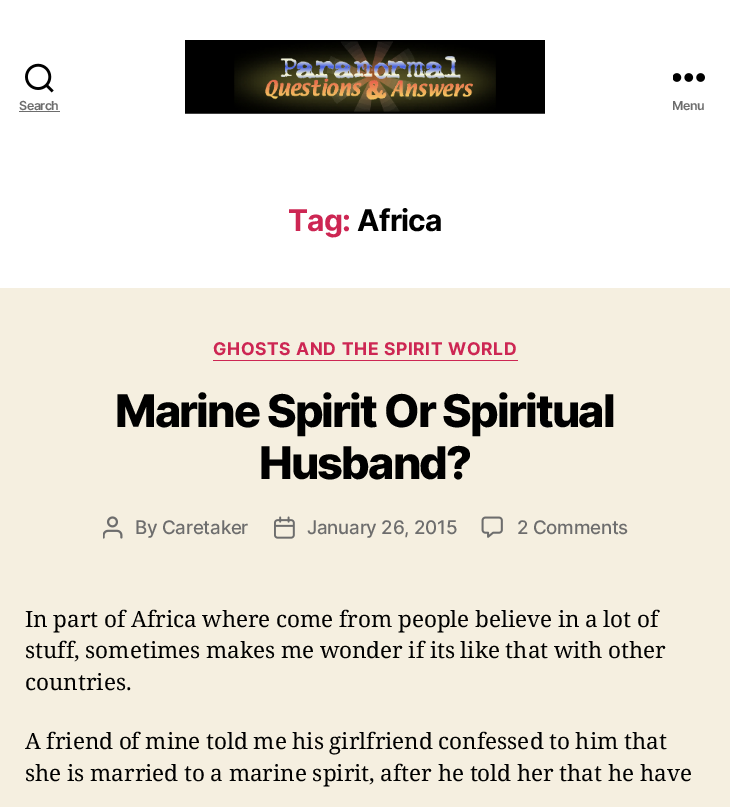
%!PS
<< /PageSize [730 807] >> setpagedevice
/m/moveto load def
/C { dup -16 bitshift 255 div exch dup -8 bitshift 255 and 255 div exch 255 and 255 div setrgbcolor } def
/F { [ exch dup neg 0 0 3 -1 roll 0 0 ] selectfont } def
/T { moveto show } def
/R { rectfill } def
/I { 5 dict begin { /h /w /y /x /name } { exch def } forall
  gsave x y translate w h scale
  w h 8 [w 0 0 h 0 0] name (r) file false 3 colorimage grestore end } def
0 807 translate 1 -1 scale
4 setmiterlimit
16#F5EFE0 C
0 0 730 807 R
16#FFFFFF C
0 0 730 288 R
(1.rgb) 25 63 29 30 I
/Inter-SemiBold 12.5 F
16#6D6D6D C
19 110 m -.5 0 (Search) ashow
19 111 41 1 R
(2.rgb) 185 40 360 74 I
(3.rgb) 673 73 32 9 I
672 110 m -.5 0 (Menu) ashow
/Inter-Bold 30 F
16#CD2653 C
288 231 m -.75 0 (Tag:) ashow
16#000000 C
357 231 m -.75 0 (Africa) ashow
16#CD2653 C
213 360 305 1 R
/Inter-Bold 17.5 F
213 355 m .65 0 (GHOSTS AND THE SPIRIT WORLD) ashow
/Inter-ExtraBold 45 F
16#000000 C
115 427 m -1.9 0 (Marine Spirit Or Spiritual) ashow
259 479 m -1.9 0 (Husband?) ashow
(4.rgb) 103 516 20 23 I
/Inter-Medium 18.75 F
16#6D6D6D C
135 534 m -.3 0 (By Caretaker) ashow
(5.rgb) 274 516 21 23 I
307 534 m -.3 0 (January 26, 2015) ashow
(6.rgb) 481 516 22 22 I
517 534 m -.3 0 (2 Comments) ashow
/NotoSerif-Regular 22.5 F
16#000000 C
25 627 m -.25 0 32 (In part of Africa where come from people believe in a lot of) widthshow
25 658 m -.25 0 32 (stuff, sometimes makes me wonder if its like that with other) widthshow
(countries.) 25 690 T
25 749 m -.25 0 32 (A friend of mine told me his girlfriend confessed to him that) widthshow
25 781 m -.25 0 32 (she is married to a marine spirit, after he told her that he have) widthshow
showpage
